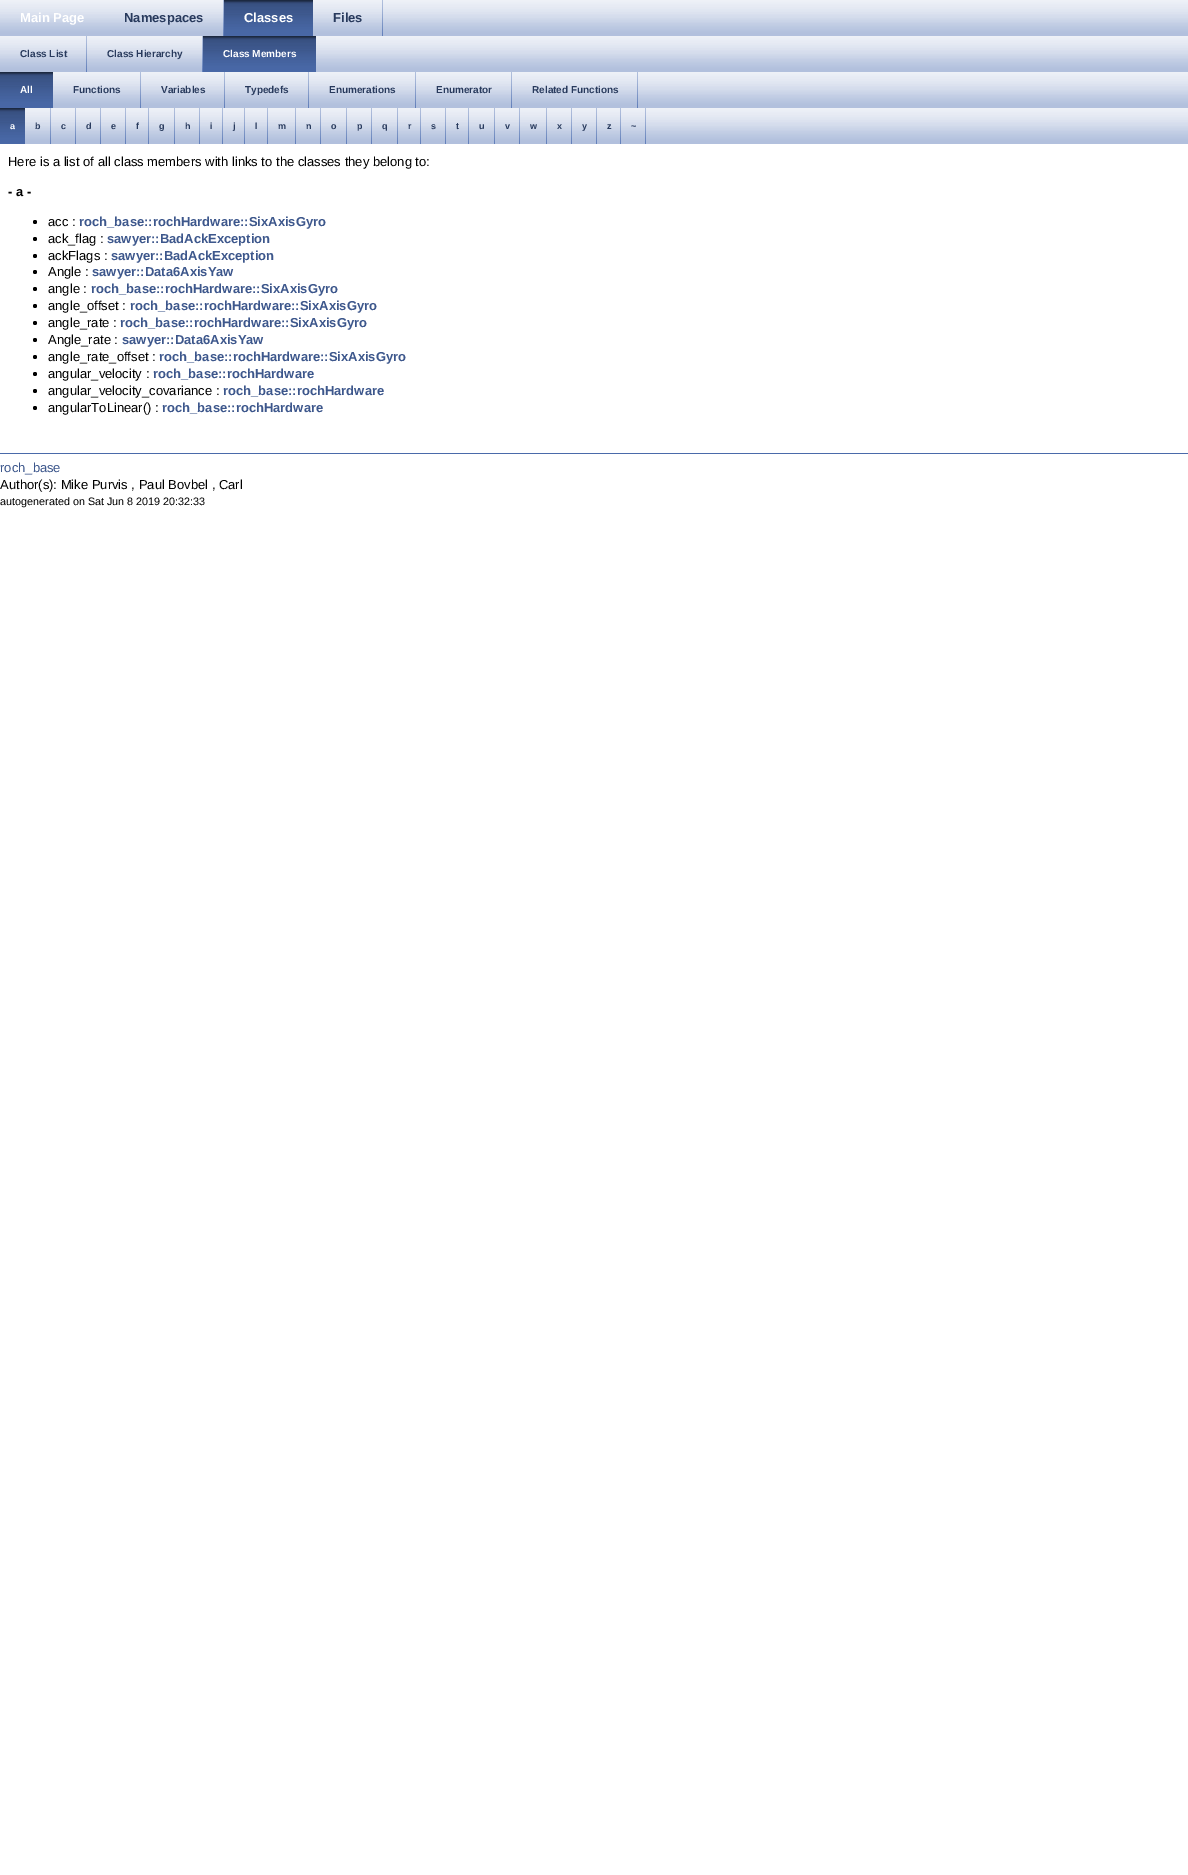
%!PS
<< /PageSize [1188 1875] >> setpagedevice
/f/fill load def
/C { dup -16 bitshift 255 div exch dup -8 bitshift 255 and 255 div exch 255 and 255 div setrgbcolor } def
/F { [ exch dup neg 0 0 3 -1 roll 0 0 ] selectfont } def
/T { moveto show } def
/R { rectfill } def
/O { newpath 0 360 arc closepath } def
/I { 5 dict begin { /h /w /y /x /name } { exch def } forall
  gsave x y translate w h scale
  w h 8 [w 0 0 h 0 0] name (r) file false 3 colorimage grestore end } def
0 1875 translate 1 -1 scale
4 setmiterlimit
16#FFFFFF C
0 0 1188 1875 R
(1.rgb) 0 0 1188 36 I
/LiberationSans-Bold 13 F
(Main Page) 20 22 T
(2.rgb) 223 0 1 36 I
16#283A5D C
(Namespaces) 124 22 T
(3.rgb) 224 0 89 36 I
16#FFFFFF C
(Classes) 244 22 T
(2.rgb) 382 0 1 36 I
16#283A5D C
(Files) 333 22 T
(1.rgb) 0 36 1188 36 I
(2.rgb) 86 36 1 36 I
/LiberationSans-Bold 10 F
(Class List) 20 57 T
(2.rgb) 202 36 1 36 I
(Class Hierarchy) 107 57 T
(4.rgb) 203 36 113 36 I
16#FFFFFF C
(Class Members) 223 57 T
(5.rgb) 53 72 1135 36 I
(6.rgb) 0 72 53 36 I
(All) 20 93 T
(2.rgb) 140 72 1 36 I
16#283A5D C
(Functions) 73 93 T
(2.rgb) 224 72 1 36 I
(Variables) 161 93 T
(2.rgb) 308 72 1 36 I
(Typedefs) 245 93 T
(2.rgb) 415 72 1 36 I
(Enumerations) 329 93 T
(2.rgb) 511 72 1 36 I
(Enumerator) 436 93 T
(2.rgb) 637 72 1 36 I
(Related Functions) 532 93 T
(7.rgb) 25 108 1163 36 I
(8.rgb) 0 108 25 36 I
/LiberationSans-Bold 9 F
16#FFFFFF C
(a) 10 129 T
(2.rgb) 50 108 1 36 I
16#283A5D C
(b) 35 129 T
(2.rgb) 75 108 1 36 I
(c) 61 129 T
(2.rgb) 100 108 1 36 I
(d) 86 129 T
(2.rgb) 125 108 1 36 I
(e) 111 129 T
(2.rgb) 148 108 1 36 I
(f) 136 129 T
(2.rgb) 174 108 1 36 I
(g) 159 129 T
(2.rgb) 199 108 1 36 I
(h) 185 129 T
(2.rgb) 222 108 1 36 I
(i) 210 129 T
(2.rgb) 244 108 1 36 I
(j) 233 129 T
(2.rgb) 267 108 1 36 I
(l) 255 129 T
(2.rgb) 295 108 1 36 I
(m) 278 129 T
(2.rgb) 320 108 1 36 I
(n) 306 129 T
(2.rgb) 346 108 1 36 I
(o) 331 129 T
(2.rgb) 371 108 1 36 I
(p) 357 129 T
(2.rgb) 397 108 1 36 I
(q) 382 129 T
(2.rgb) 420 108 1 36 I
(r) 408 129 T
(2.rgb) 445 108 1 36 I
(s) 431 129 T
(2.rgb) 468 108 1 36 I
(t) 456 129 T
(2.rgb) 494 108 1 36 I
(u) 479 129 T
(2.rgb) 519 108 1 36 I
(v) 505 129 T
(2.rgb) 546 108 1 36 I
(w) 530 129 T
(2.rgb) 571 108 1 36 I
(x) 557 129 T
(2.rgb) 596 108 1 36 I
(y) 582 129 T
(2.rgb) 620 108 1 36 I
(z) 607 129 T
(2.rgb) 645 108 1 36 I
(~) 631 129 T
/LiberationSans-Regular 13 F
16#000000 C
(Here is a list of all class members with links to the classes they belong to:) 8 166 T
/LiberationSans-Bold 13 F
(- a -) 8 196 T
35 222 2 O f
/LiberationSans-Regular 13 F
(acc :) 48 226 T
/LiberationSans-Bold 13 F
16#3D578C C
(roch_base::rochHardware::SixAxisGyro) 79 226 T
16#000000 C
35 239 2 O f
/LiberationSans-Regular 13 F
(ack_flag :) 48 243 T
/LiberationSans-Bold 13 F
16#3D578C C
(sawyer::BadAckException) 107 243 T
16#000000 C
35 256 2 O f
/LiberationSans-Regular 13 F
(ackFlags :) 48 260 T
/LiberationSans-Bold 13 F
16#3D578C C
(sawyer::BadAckException) 111 260 T
16#000000 C
35 272 2 O f
/LiberationSans-Regular 13 F
(Angle :) 48 276 T
/LiberationSans-Bold 13 F
16#3D578C C
(sawyer::Data6AxisYaw) 92 276 T
16#000000 C
35 289 2 O f
/LiberationSans-Regular 13 F
(angle :) 48 293 T
/LiberationSans-Bold 13 F
16#3D578C C
(roch_base::rochHardware::SixAxisGyro) 91 293 T
16#000000 C
35 306 2 O f
/LiberationSans-Regular 13 F
(angle_offset :) 48 310 T
/LiberationSans-Bold 13 F
16#3D578C C
(roch_base::rochHardware::SixAxisGyro) 130 310 T
16#000000 C
35 323 2 O f
/LiberationSans-Regular 13 F
(angle_rate :) 48 327 T
/LiberationSans-Bold 13 F
16#3D578C C
(roch_base::rochHardware::SixAxisGyro) 120 327 T
16#000000 C
35 340 2 O f
/LiberationSans-Regular 13 F
(Angle_rate :) 48 344 T
/LiberationSans-Bold 13 F
16#3D578C C
(sawyer::Data6AxisYaw) 122 344 T
16#000000 C
35 357 2 O f
/LiberationSans-Regular 13 F
(angle_rate_offset :) 48 361 T
/LiberationSans-Bold 13 F
16#3D578C C
(roch_base::rochHardware::SixAxisGyro) 159 361 T
16#000000 C
35 374 2 O f
/LiberationSans-Regular 13 F
(angular_velocity :) 48 378 T
/LiberationSans-Bold 13 F
16#3D578C C
(roch_base::rochHardware) 153 378 T
16#000000 C
35 391 2 O f
/LiberationSans-Regular 13 F
(angular_velocity_covariance :) 48 395 T
/LiberationSans-Bold 13 F
16#3D578C C
(roch_base::rochHardware) 223 395 T
16#000000 C
35 408 2 O f
/LiberationSans-Regular 13 F
(angularToLinear\(\) :) 48 412 T
/LiberationSans-Bold 13 F
16#3D578C C
(roch_base::rochHardware) 162 412 T
16#4A6AAA C
0 453 1188 1 R
/LiberationSans-Regular 13 F
16#3D578C C
(roch_base) 0 472 T
16#000000 C
(Author\(s\): Mike Purvis , Paul Bovbel , Carl) 0 489 T
/LiberationSans-Regular 10.8 F
(autogenerated on Sat Jun 8 2019 20:32:33) 0 505 T
showpage
